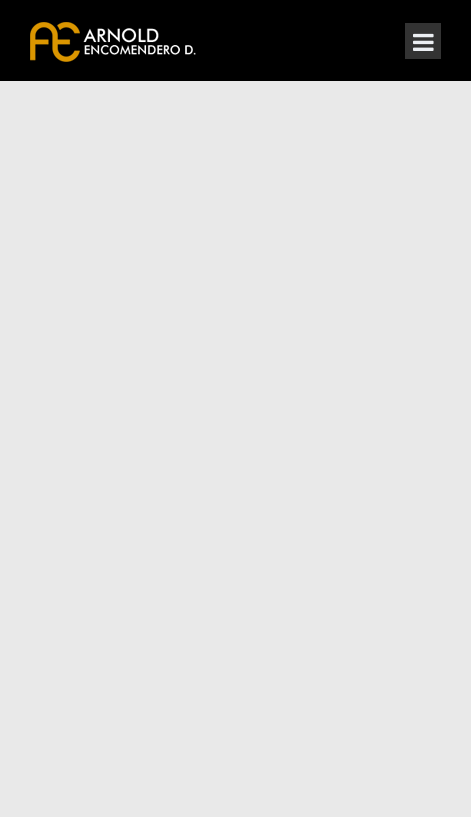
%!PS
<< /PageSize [471 817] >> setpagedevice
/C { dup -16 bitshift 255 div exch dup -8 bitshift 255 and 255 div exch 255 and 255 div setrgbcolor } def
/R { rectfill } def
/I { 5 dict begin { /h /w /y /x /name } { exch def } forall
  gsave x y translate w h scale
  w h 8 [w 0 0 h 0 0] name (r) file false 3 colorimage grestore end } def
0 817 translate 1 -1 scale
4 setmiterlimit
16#E9E9E9 C
0 0 471 817 R
16#000000 C
0 0 471 81 R
(1.rgb) 30 22 166 40 I
16#333333 C
405 23 36 36 R
(2.rgb) 413 33 21 18 I
showpage
